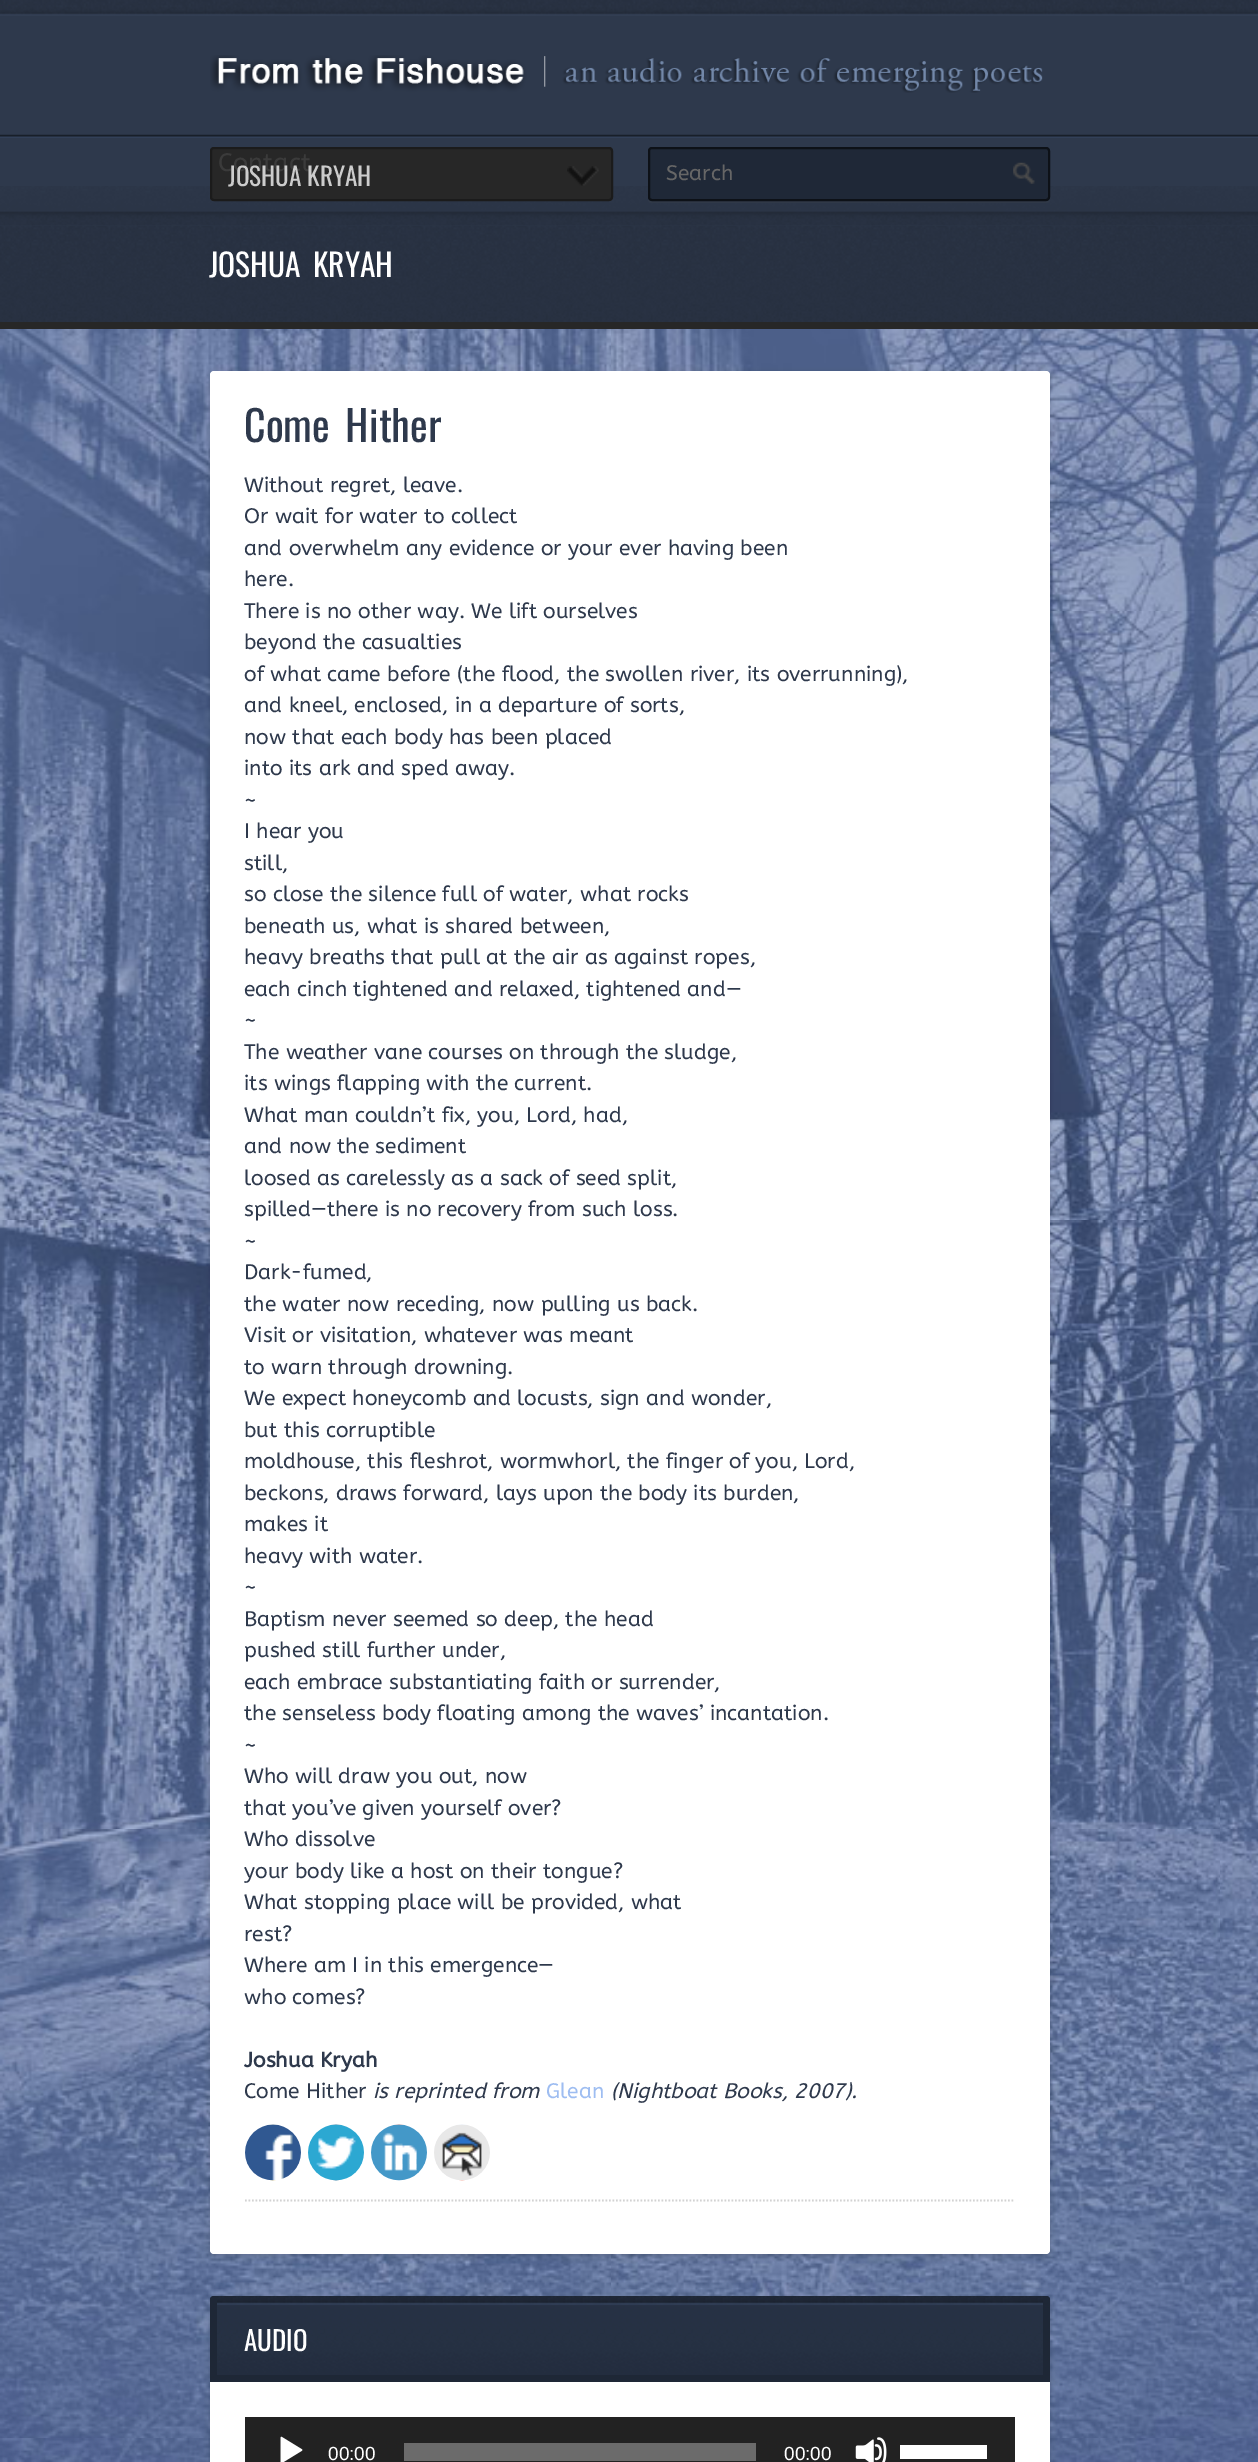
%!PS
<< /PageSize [1258 2462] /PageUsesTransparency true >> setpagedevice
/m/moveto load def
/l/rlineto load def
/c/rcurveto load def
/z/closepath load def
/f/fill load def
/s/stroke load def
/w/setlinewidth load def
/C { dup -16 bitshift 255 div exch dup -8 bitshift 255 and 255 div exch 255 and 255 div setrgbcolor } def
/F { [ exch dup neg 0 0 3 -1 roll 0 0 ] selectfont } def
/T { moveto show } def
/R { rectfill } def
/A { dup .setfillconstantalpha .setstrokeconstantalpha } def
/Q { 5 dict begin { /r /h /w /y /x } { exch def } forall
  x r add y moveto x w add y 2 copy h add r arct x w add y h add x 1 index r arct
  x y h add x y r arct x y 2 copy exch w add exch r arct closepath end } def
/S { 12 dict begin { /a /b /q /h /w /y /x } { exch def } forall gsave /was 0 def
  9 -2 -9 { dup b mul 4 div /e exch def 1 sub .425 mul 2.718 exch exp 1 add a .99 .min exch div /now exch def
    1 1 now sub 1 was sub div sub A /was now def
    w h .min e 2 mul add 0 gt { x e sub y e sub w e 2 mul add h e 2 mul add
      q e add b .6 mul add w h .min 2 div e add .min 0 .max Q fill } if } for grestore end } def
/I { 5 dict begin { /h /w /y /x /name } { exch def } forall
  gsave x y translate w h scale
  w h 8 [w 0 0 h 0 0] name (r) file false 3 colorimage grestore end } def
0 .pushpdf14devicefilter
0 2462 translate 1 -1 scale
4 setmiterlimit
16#FFFFFF C
0 0 1258 2462 R
16#2E394C C
0 16 1258 210 R
(1.rgb) 0 186 1258 40 I
(2.rgb) 0 0 1258 16 I
(3.rgb) 210 55 833 38 I
(4.rgb) 0 134 1258 4 I
16#272727 C
210 147 403 54 4 Q f
(5.rgb) 567 166 32 20 I
16#1B1B1B C
2 w
211 148 401 52 3 Q s
/ABeeZee-Regular 25.25 F
16#3B3B3B C
(Contact) 218 171 T
/Oswald-Regular 25.25 F
16#CCCCCC C
(JOSHUA KRYAH) 228 186 T
16#303948 C
648 200 m 0 2 2 3 4 3 c 394 0 l 2 0 4 -2 4 -4 c 0 -1 l 0 2 -2 3 -4 3 c -395 0 l -1 0 -2 0 -3 -1 c z f
16#1F2837 C
648 147 402 54 4 Q f
(6.rgb) 1013 162 22 22 I
16#0D1117 C
649 148 400 52 3 Q s
/ABeeZee-Regular 21 F
16#666666 C
(Search) 666 180 T
(7.rgb) 0 226 1258 96 I
16#272727 C
0 322 1258 7 R
/Oswald-Regular 31.5 F
16#FFFFFF C
209 277 m 5 0 32 (JOSHUA KRYAH) widthshow
(15.rgb) 0 329 1258 2133 I
16#000000 C
210 373 840 1883 4 2.5 .15 S
16#FFFFFF C
210 371 840 1883 4 Q f
/Oswald-Regular 42 F
16#2E394C C
244 442 m 6 0 32 (Come Hither) widthshow
/ABeeZee-Regular 21 F
(Without regret, leave.) 244 492 T
(Or wait for water to collect) 244 523 T
(and overwhelm any evidence or your ever having been) 244 555 T
(here.) 244 586 T
(There is no other way. We lift ourselves) 244 618 T
(beyond the casualties) 244 649 T
(of what came before \(the flood, the swollen river, its overrunning\),) 244 681 T
(and kneel, enclosed, in a departure of sorts,) 244 712 T
(now that each body has been placed) 244 744 T
(into its ark and sped away.) 244 775 T
(~) 244 807 T
(I hear you) 244 838 T
(still,) 244 870 T
(so close the silence full of water, what rocks) 244 901 T
(beneath us, what is shared between,) 244 933 T
(heavy breaths that pull at the air as against ropes,) 244 964 T
(each cinch tightened and relaxed, tightened and—) 244 996 T
(~) 244 1027 T
(The weather vane courses on through the sludge,) 244 1059 T
(its wings flapping with the current.) 244 1090 T
(What man couldn’t fix, you, Lord, had,) 244 1122 T
(and now the sediment) 244 1153 T
(loosed as carelessly as a sack of seed split,) 244 1185 T
(spilled—there is no recovery from such loss.) 244 1216 T
(~) 244 1248 T
(Dark-fumed,) 244 1279 T
(the water now receding, now pulling us back.) 244 1311 T
(Visit or visitation, whatever was meant) 244 1342 T
(to warn through drowning.) 244 1374 T
(We expect honeycomb and locusts, sign and wonder,) 244 1405 T
(but this corruptible) 244 1437 T
(moldhouse, this fleshrot, wormwhorl, the finger of you, Lord,) 244 1468 T
(beckons, draws forward, lays upon the body its burden,) 244 1500 T
(makes it) 244 1531 T
(heavy with water.) 244 1563 T
(~) 244 1594 T
(Baptism never seemed so deep, the head) 244 1626 T
(pushed still further under,) 244 1657 T
(each embrace substantiating faith or surrender,) 244 1689 T
(the senseless body floating among the waves’ incantation.) 244 1720 T
(~) 244 1752 T
(Who will draw you out, now) 244 1783 T
(that you’ve given yourself over?) 244 1815 T
(Who dissolve) 244 1846 T
(your body like a host on their tongue?) 244 1878 T
(What stopping place will be provided, what) 244 1909 T
(rest?) 244 1941 T
(Where am I in this emergence—) 244 1972 T
(who comes?) 244 2004 T
/ABeeZee-Bold 21 F
(Joshua Kryah) 244 2067 T
/ABeeZee-Regular 21 F
(Come Hither) 244 2098 T
/ABeeZee-Italic 21 F
(is reprinted from) 373 2098 T
/ABeeZee-Regular 21 F
16#9EBDF1 C
(Glean) 546 2098 T
/ABeeZee-Italic 21 F
16#2E394C C
(\(Nightboat Books, 2007\).) 611 2098 T
(8.rgb) 245 2124 56 57 I
(9.rgb) 308 2124 56 57 I
(10.rgb) 371 2124 56 57 I
(11.rgb) 434 2124 56 57 I
16#D2D2D2 C
1.8 w
[1.75 1.75] 0 setdash
245 2200.5 m 770 0 l s
16#000000 C
210 2298 840 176 4 2.5 .15 S
(12.rgb) 210 2296 840 79 I
16#1E2736 C
1043 2296 m 3 0 l 2 0 4 2 4 4 c 0 82 l -7 0 l z f
210 2375 840 7 R
214 2296 m 3 0 l 0 86 l -7 0 l 0 -82 l 0 -2 2 -4 4 -4 c z f
/Oswald-Regular 27 F
16#FFFFFF C
(AUDIO) 244 2351 T
210 2382 840 80 R
16#222222 C
245 2417 770 45 R
(13.rgb) 280 2436 23 26 I
/LiberationSans-Regular 19 F
16#FFFFFF C
(00:00) 328 2460 T
16#6B6B6B C
404 2443 352 18 R
16#FFFFFF C
(00:00) 784 2460 T
(14.rgb) 855 2437 32 25 I
900 2445 87 14 R
.poppdf14devicefilter showpage
